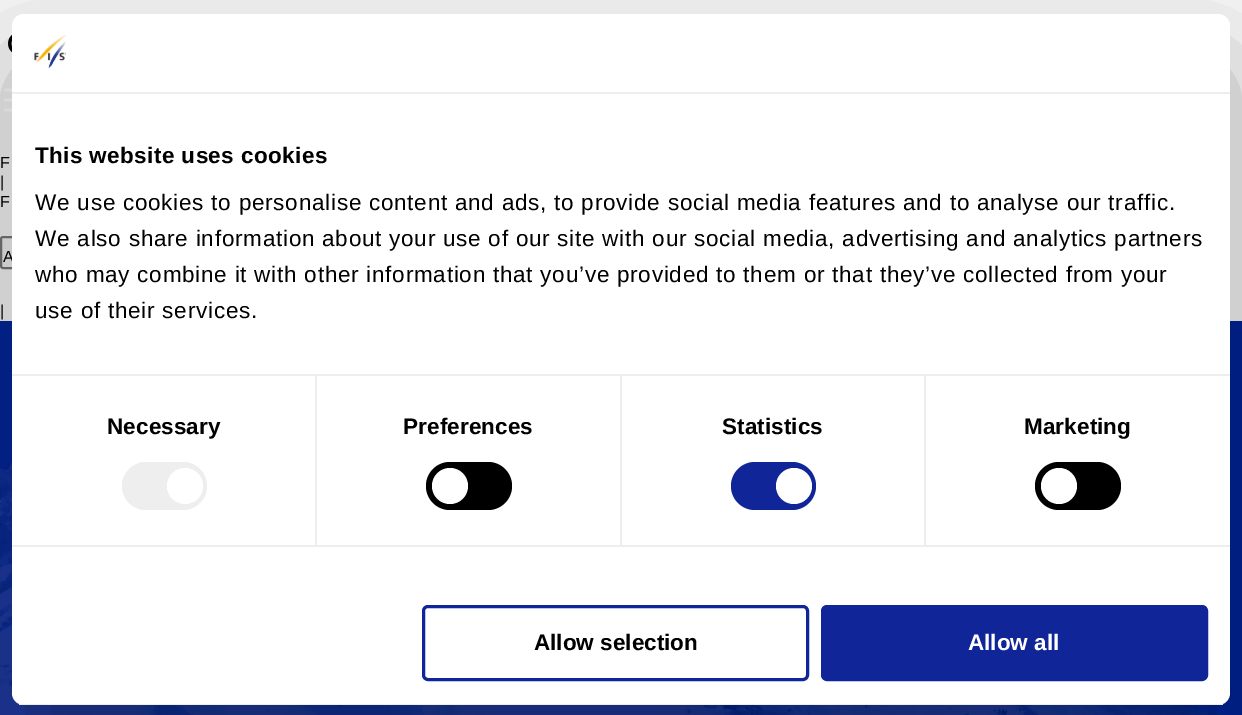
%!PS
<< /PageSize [1242 715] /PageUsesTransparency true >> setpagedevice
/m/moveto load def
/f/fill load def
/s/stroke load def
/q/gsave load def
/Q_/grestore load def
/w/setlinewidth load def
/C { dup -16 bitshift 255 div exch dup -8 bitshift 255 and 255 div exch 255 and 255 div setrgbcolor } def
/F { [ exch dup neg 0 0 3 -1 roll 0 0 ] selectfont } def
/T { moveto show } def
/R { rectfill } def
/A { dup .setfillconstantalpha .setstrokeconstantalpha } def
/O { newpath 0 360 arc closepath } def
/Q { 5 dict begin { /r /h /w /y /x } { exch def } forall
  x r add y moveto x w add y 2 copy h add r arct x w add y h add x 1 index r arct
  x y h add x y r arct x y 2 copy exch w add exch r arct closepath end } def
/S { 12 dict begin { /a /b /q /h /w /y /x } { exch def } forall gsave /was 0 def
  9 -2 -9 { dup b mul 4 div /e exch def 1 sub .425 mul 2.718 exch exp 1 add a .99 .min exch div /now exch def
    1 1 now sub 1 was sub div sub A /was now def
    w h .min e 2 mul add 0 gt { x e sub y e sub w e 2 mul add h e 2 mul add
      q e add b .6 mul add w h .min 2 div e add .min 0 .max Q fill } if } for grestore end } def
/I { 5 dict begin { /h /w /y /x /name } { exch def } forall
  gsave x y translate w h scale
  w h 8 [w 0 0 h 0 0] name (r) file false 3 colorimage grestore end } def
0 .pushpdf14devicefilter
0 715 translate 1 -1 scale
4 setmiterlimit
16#F5F5F5 C
0 0 1242 715 R
(1.rgb) 8 35 4 18 I
(2.rgb) 4 88 8 24 I
/LiberationSans-Regular 16 F
16#000000 C
(F) 0 168 T
(|) 0 187 T
(F) 0 207 T
16#EFEFEF C
1 237 127 31 2 Q q f Q_
16#767676 C
2 w
s
16#000000 C
(A) 3 262 T
(|) 0 316 T
16#002395 C
1208 321 34 394 R
(4.rgb) 0 321 1208 394 I
16#000000 C
12 62 1218 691 12 51 .3 S
16#FFFFFF C
12 14 1218 691 12 Q f
16#EEEEEE C
12 92 1218 2 R
(3.rgb) 34 34 32 35 I
315 375 2 170 R
620 375 2 170 R
924 375 2 170 R
12 374 1218 2 R
/LiberationSans-Bold 22.5 F
16#000000 C
35 163 m .4 0 (This website uses cookies) ashow
/LiberationSans-Regular 22.5 F
35 210 m .75 0 (We use cookies to personalise content and ads, to provide social media features and to analyse our traffic.) ashow
35 246 m .75 0 (We also share information about your use of our site with our social media, advertising and analytics partners) ashow
35 282 m .75 0 (who may combine it with other information that you’ve provided to them or that they’ve collected from your) ashow
35 318 m .75 0 (use of their services.) ashow
16#EEEEEE C
12 545 1218 2 R
/LiberationSans-Bold 22.5 F
16#000000 C
107 434 m .1 0 (Necessary) ashow
16#EEEEEE C
122 462 85 48 24 Q f
16#FFFFFF C
185 486 18 O f
16#000000 C
403 434 m .1 0 (Preferences) ashow
426 462 86 48 24 Q f
16#FFFFFF C
450 486 18 O f
16#000000 C
722 434 m .1 0 (Statistics) ashow
16#102598 C
731 462 85 48 24 Q f
16#FFFFFF C
794 486 18 O f
16#000000 C
1024 434 m .1 0 (Marketing) ashow
1035 462 86 48 24 Q f
16#FFFFFF C
1059 486 18 O f
q
12 14 1218 691 12 Q clip newpath
16#EEEEEE C
12 704 1218 1 R
Q_
16#102598 C
3 w
423.5 606.5 384 73 4.5 Q s
16#000000 C
(Allow selection) 534 650 T
16#102598 C
822.5 606.5 384 73 4.5 Q q f Q_
s
16#FFFFFF C
(Allow all) 968 650 T
.poppdf14devicefilter showpage
